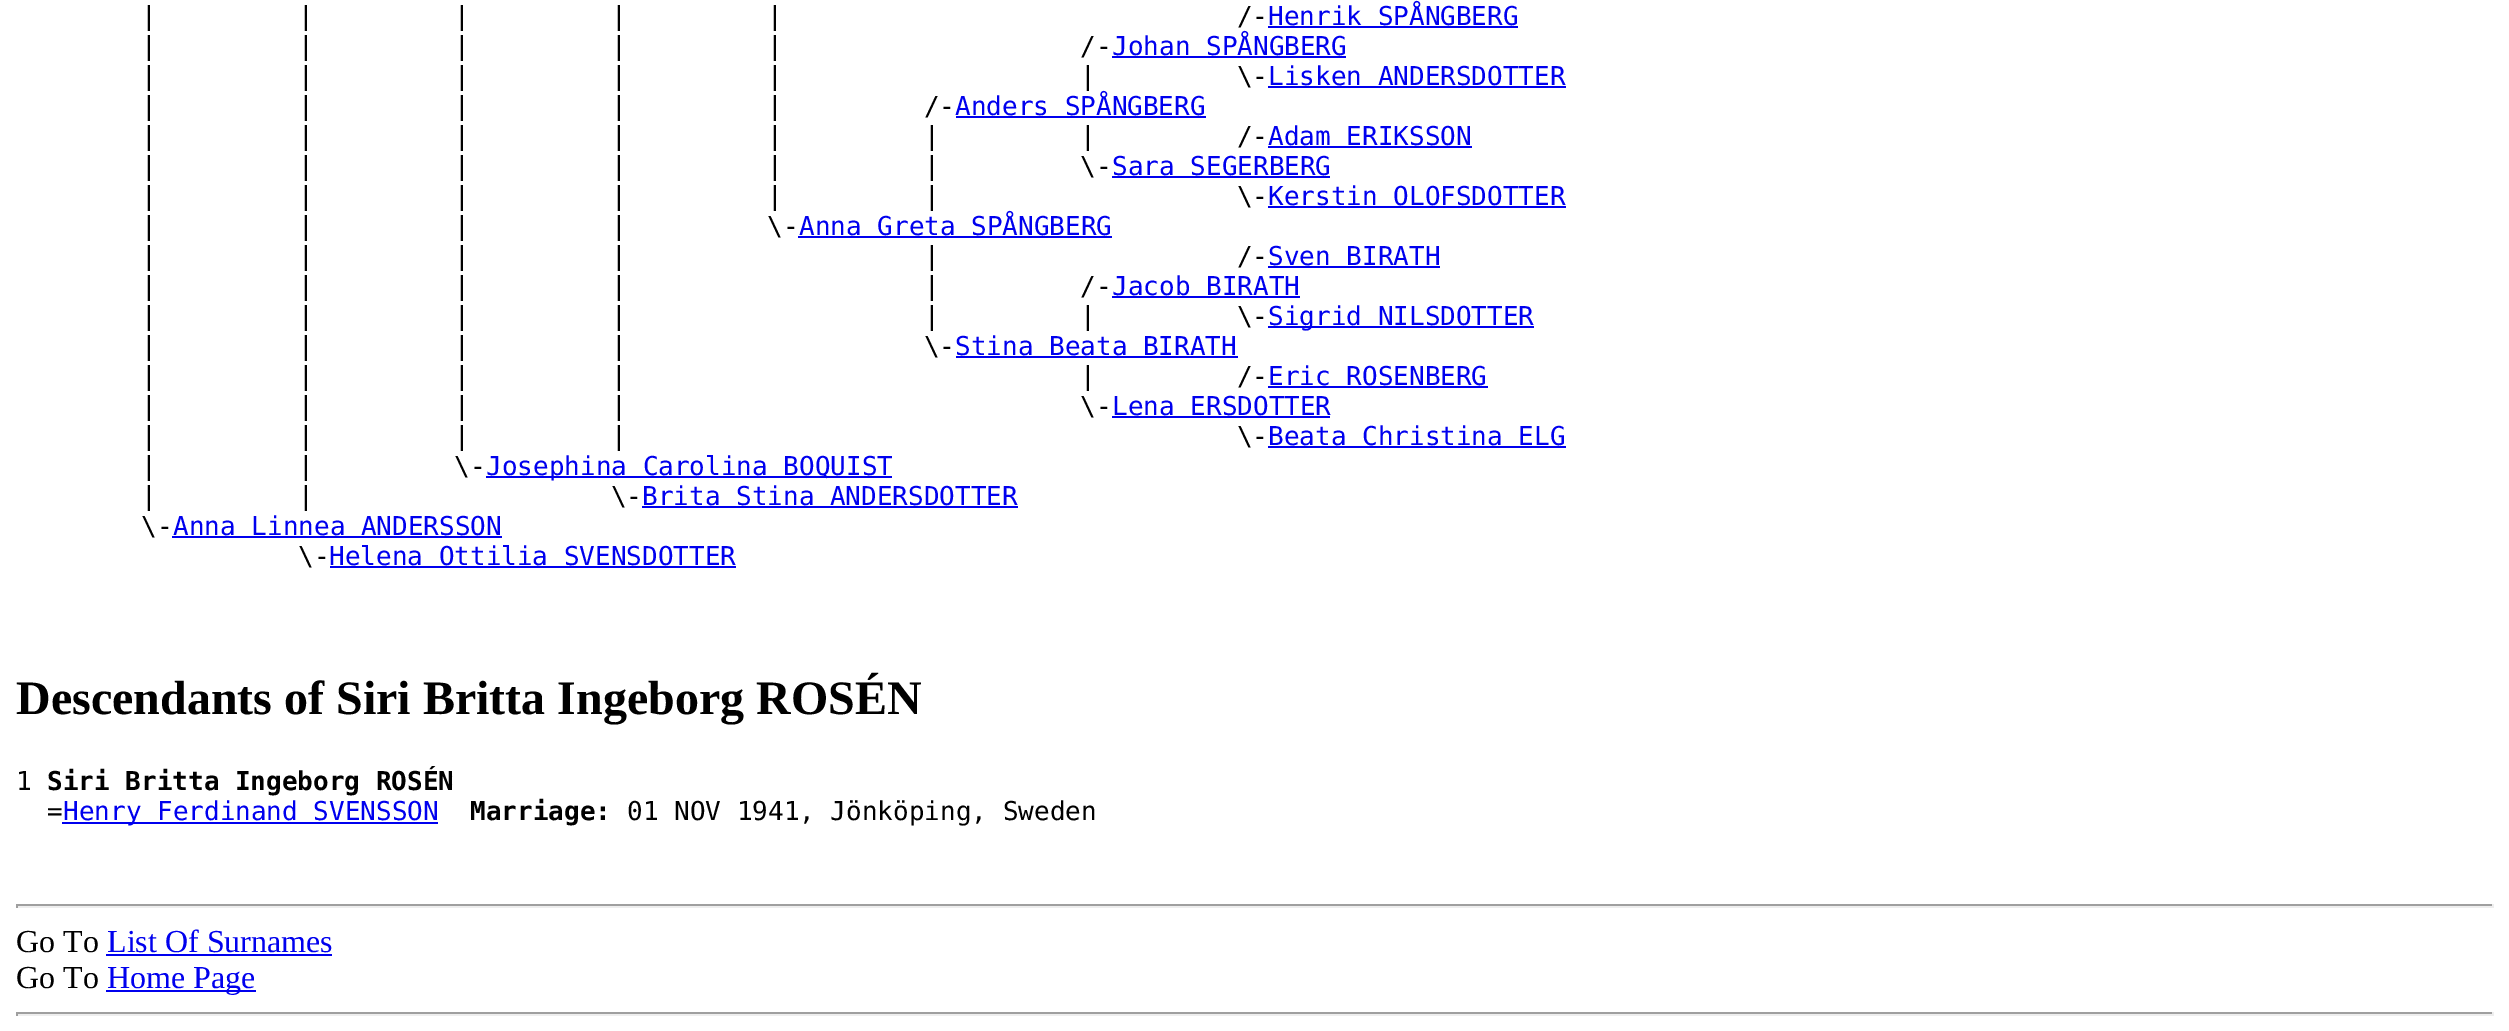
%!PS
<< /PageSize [2509 1031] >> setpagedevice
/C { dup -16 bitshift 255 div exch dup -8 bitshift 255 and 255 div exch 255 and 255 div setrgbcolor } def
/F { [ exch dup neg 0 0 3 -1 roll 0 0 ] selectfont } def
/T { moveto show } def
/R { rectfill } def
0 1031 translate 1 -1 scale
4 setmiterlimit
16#FFFFFF C
0 0 2509 1031 R
/DejaVuSansMono-Regular 26 F
16#000000 C
(|         |         |         |         |                             /-) 141 25 T
16#0000EE C
(Henrik SPÅNGBERG) 1268 25 T
1268 26 250 2 R
16#000000 C
(|         |         |         |         |                   /-) 141 55 T
16#0000EE C
(Johan SPÅNGBERG) 1112 55 T
1112 56 234 2 R
16#000000 C
(|         |         |         |         |                   |         \\-) 141 85 T
16#0000EE C
(Lisken ANDERSDOTTER) 1268 85 T
1268 86 298 2 R
16#000000 C
(|         |         |         |         |         /-) 141 115 T
16#0000EE C
(Anders SPÅNGBERG) 955 115 T
956 116 250 2 R
16#000000 C
(|         |         |         |         |         |         |         /-) 141 145 T
16#0000EE C
(Adam ERIKSSON) 1268 145 T
1268 146 204 2 R
16#000000 C
(|         |         |         |         |         |         \\-) 141 175 T
16#0000EE C
(Sara SEGERBERG) 1112 175 T
1112 176 218 2 R
16#000000 C
(|         |         |         |         |         |                   \\-) 141 205 T
16#0000EE C
(Kerstin OLOFSDOTTER) 1268 205 T
1268 206 298 2 R
16#000000 C
(|         |         |         |         \\-) 141 235 T
16#0000EE C
(Anna Greta SPÅNGBERG) 799 235 T
798 236 314 2 R
16#000000 C
(|         |         |         |                   |                   /-) 141 265 T
16#0000EE C
(Sven BIRATH) 1268 265 T
1268 266 172 2 R
16#000000 C
(|         |         |         |                   |         /-) 141 295 T
16#0000EE C
(Jacob BIRATH) 1112 295 T
1112 296 188 2 R
16#000000 C
(|         |         |         |                   |         |         \\-) 141 325 T
16#0000EE C
1268 326 266 2 R
(Sigrid NILSDOTTER) 1268 325 T
16#000000 C
(|         |         |         |                   \\-) 141 355 T
16#0000EE C
(Stina Beata BIRATH) 955 355 T
956 356 282 2 R
16#000000 C
(|         |         |         |                             |         /-) 141 385 T
16#0000EE C
(Eric ROSENBERG) 1268 385 T
1268 386 220 2 R
16#000000 C
(|         |         |         |                             \\-) 141 415 T
16#0000EE C
(Lena ERSDOTTER) 1112 415 T
1112 416 218 2 R
16#000000 C
(|         |         |         |                                       \\-) 141 445 T
16#0000EE C
(Beata Christina ELG) 1268 445 T
1268 446 298 2 R
16#000000 C
(|         |         \\-) 141 475 T
16#0000EE C
486 476 406 2 R
(Josephina Carolina BOQUIST) 486 475 T
16#000000 C
(|         |                   \\-) 141 505 T
16#0000EE C
(Brita Stina ANDERSDOTTER) 642 505 T
642 506 376 2 R
16#000000 C
(\\-) 141 535 T
16#0000EE C
(Anna Linnea ANDERSSON) 173 535 T
172 536 330 2 R
16#000000 C
(\\-) 298 565 T
16#0000EE C
(Helena Ottilia SVENSDOTTER) 329 565 T
330 566 406 2 R
/LiberationSerif-Bold 48 F
16#000000 C
(Descendants of Siri Britta Ingeborg ROSÉN) 16 714 T
/DejaVuSansMono-Regular 26 F
(1) 16 790 T
/DejaVuSansMono-Bold 26 F
(Siri Britta Ingeborg ROSÉN) 47 790 T
/DejaVuSansMono-Regular 26 F
(=) 47 820 T
16#0000EE C
62 822 376 2 R
(Henry Ferdinand SVENSSON) 63 820 T
/DejaVuSansMono-Bold 26 F
16#000000 C
(Marriage:) 470 820 T
/DejaVuSansMono-Regular 26 F
(01 NOV 1941, Jönköping, Sweden) 627 820 T
16#9F9F9F C
16 904 2478 2 R
16#EEEEEE C
2492 904 2 4 R
16 906 2478 2 R
16#9F9F9F C
16 904 2 4 R
/LiberationSerif-Regular 32 F
16#000000 C
(Go To) 16 952 T
16#0000EE C
(List Of Surnames) 107 952 T
106 954 226 2 R
16#000000 C
(Go To) 16 988 T
16#0000EE C
106 990 150 2 R
(Home Page) 107 988 T
16#9F9F9F C
16 1012 2478 2 R
16#EEEEEE C
2492 1012 2 4 R
16 1014 2478 2 R
16#9F9F9F C
16 1012 2 4 R
showpage
